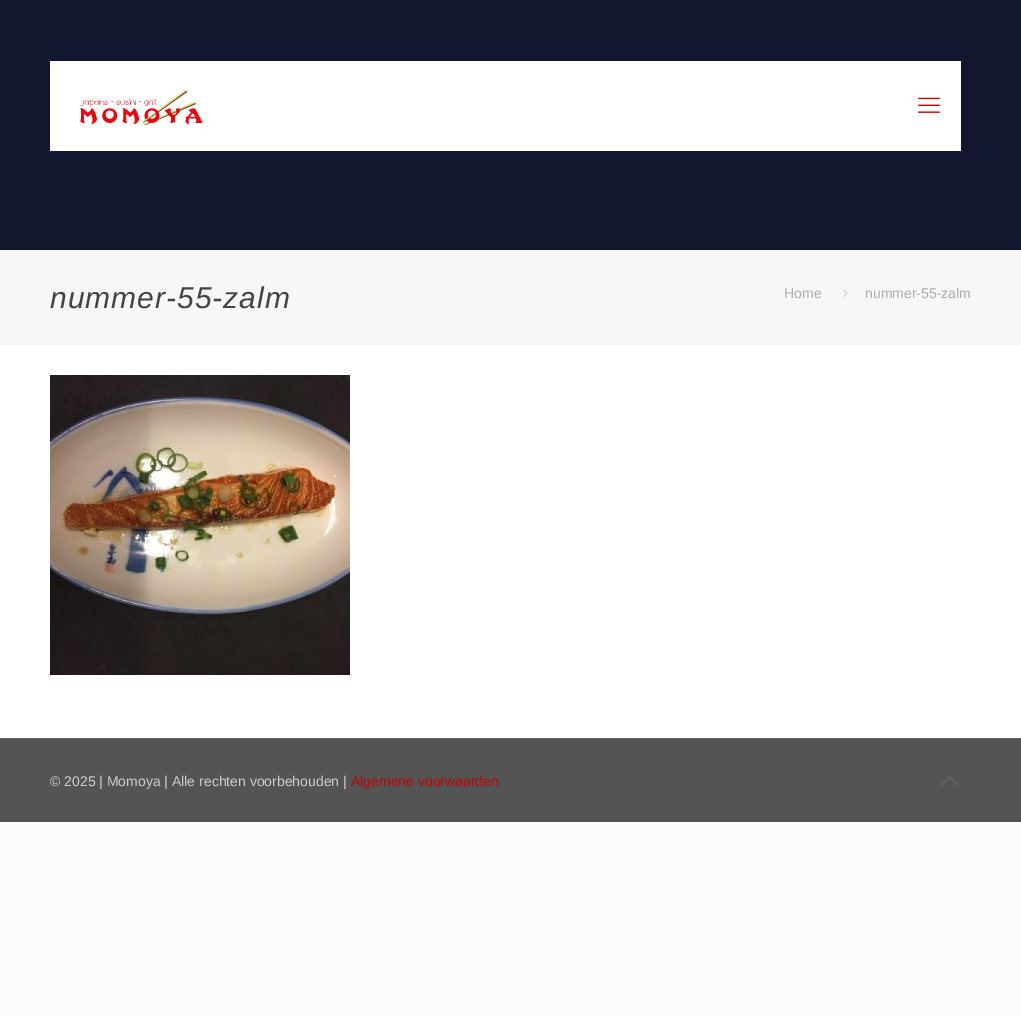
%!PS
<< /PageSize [1021 1016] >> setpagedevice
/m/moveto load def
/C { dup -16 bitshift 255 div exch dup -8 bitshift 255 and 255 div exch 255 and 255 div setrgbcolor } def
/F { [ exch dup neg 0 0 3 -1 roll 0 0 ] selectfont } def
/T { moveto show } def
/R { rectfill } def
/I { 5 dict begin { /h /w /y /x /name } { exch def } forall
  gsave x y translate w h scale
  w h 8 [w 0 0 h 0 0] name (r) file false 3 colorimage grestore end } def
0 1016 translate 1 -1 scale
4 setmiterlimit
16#FCFCFC C
0 0 1021 1016 R
16#FFFFFF C
0 345 1021 393 R
16#13162F C
0 0 1021 250 R
16#FFFFFF C
50 61 911 90 R
(1.rgb) 80 90 123 35 I
(2.rgb) 918 97 22 16 I
16#F7F7F7 C
0 250 1021 95 R
/LiberationSans-Italic 30 F
16#444444 C
50 308 m 1 0 (nummer-55-zalm) ashow
/LiberationSans-Regular 14 F
16#ADADAD C
(Home) 784 298 T
(3.rgb) 843 289 5 8 I
(nummer-55-zalm) 865 298 T
(4.rgb) 50 375 300 300 I
16#545454 C
0 739 1021 83 R
16#656565 C
0 738 1021 1 R
16#CCCCCC C
(© 2025 | Momoya | Alle rechten voorbehouden |) 50 786 T
16#BF0404 C
(Algemene voorwaarden) 351 786 T
(5.rgb) 941 776 17 10 I
showpage
